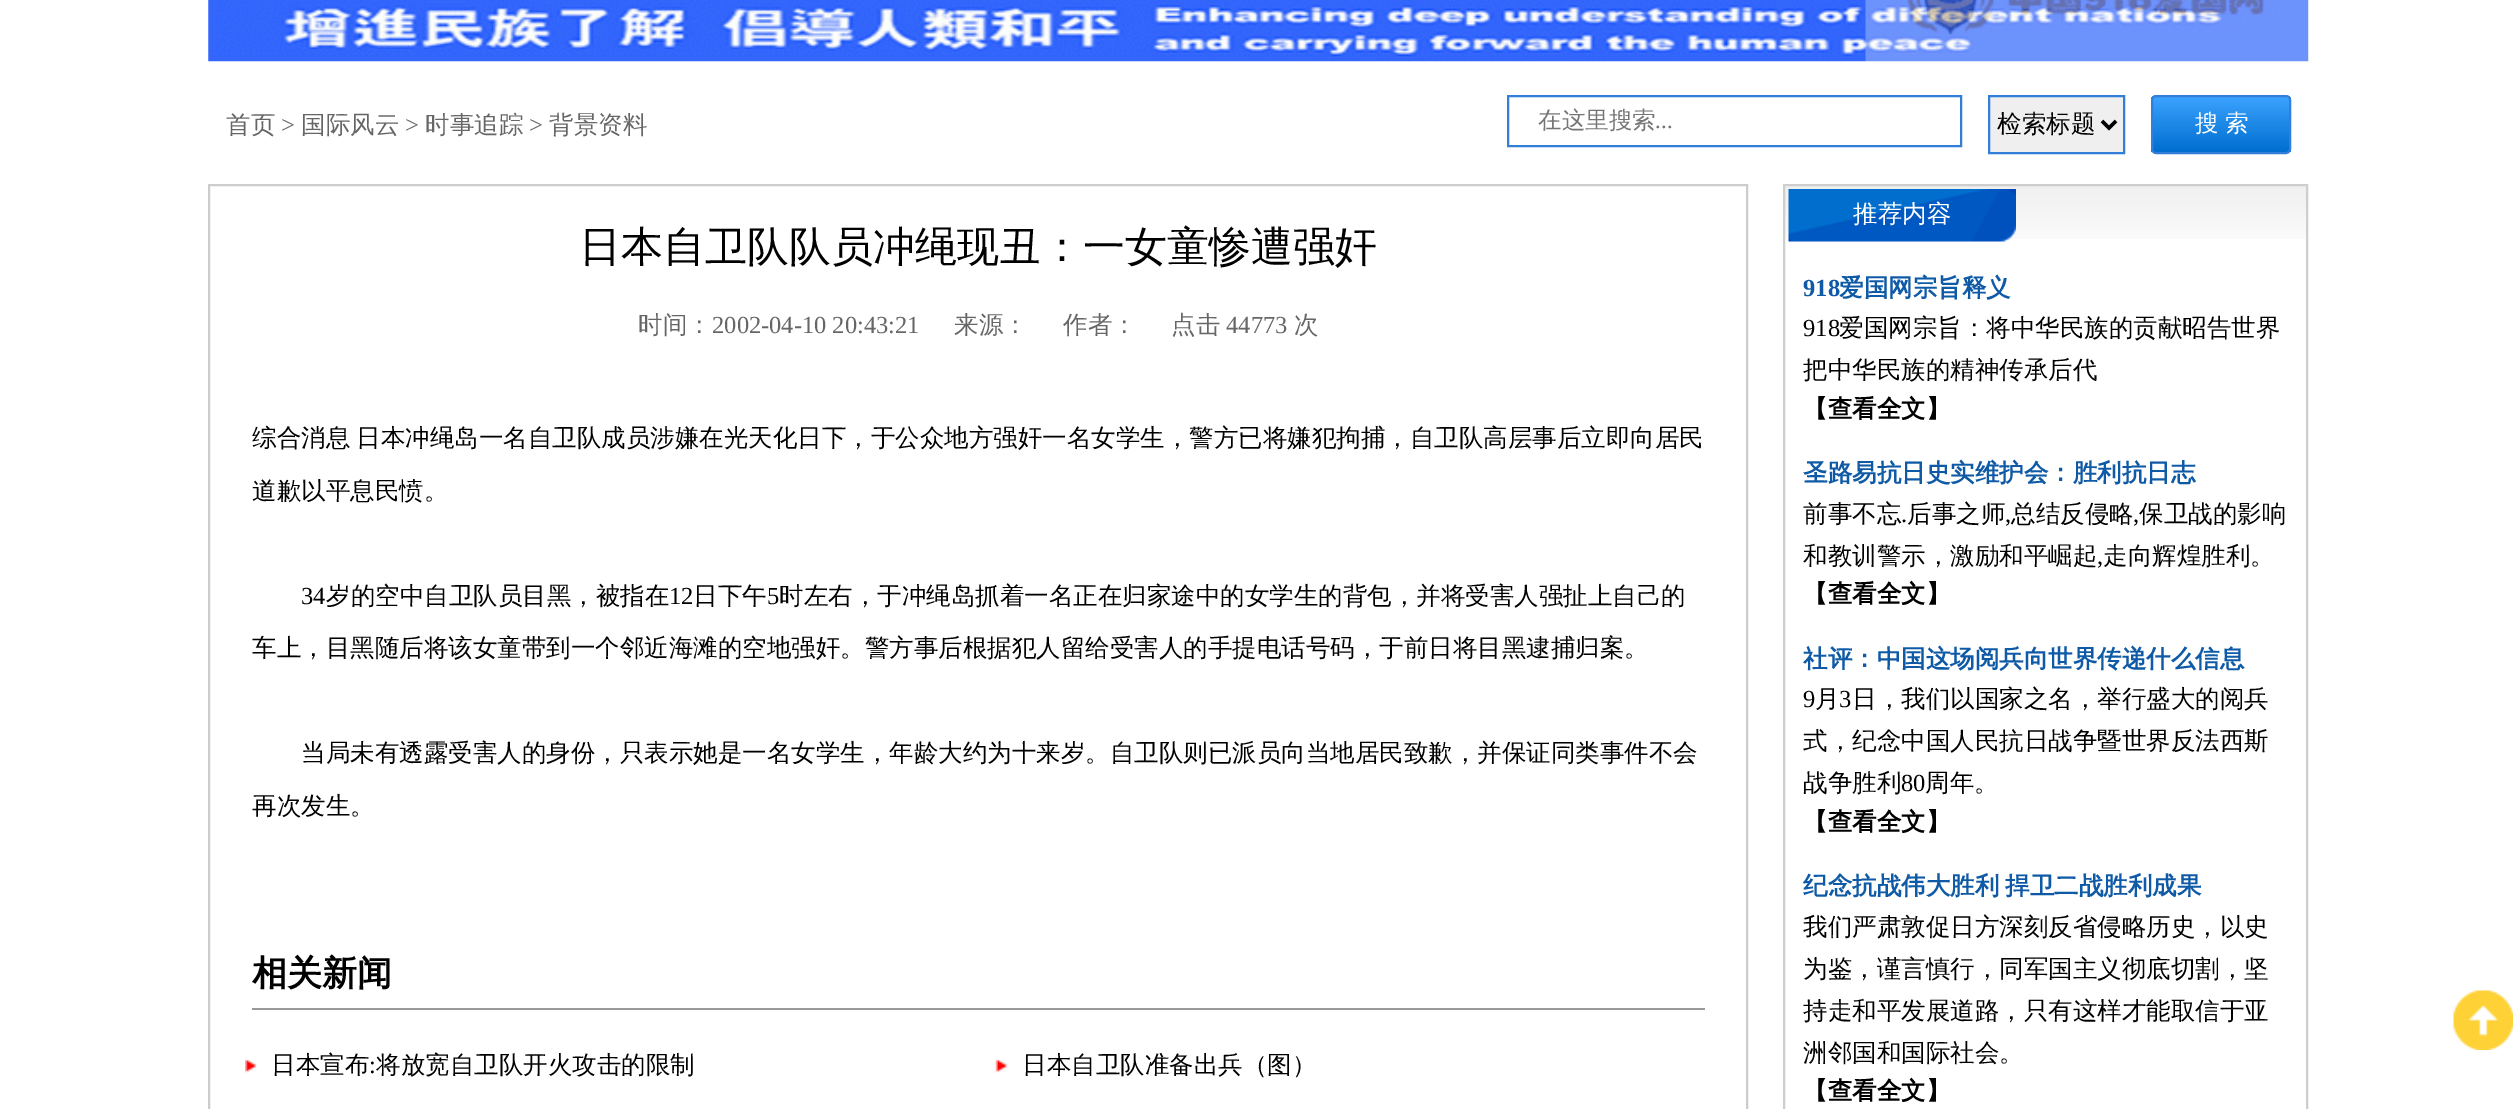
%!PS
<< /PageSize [2515 1109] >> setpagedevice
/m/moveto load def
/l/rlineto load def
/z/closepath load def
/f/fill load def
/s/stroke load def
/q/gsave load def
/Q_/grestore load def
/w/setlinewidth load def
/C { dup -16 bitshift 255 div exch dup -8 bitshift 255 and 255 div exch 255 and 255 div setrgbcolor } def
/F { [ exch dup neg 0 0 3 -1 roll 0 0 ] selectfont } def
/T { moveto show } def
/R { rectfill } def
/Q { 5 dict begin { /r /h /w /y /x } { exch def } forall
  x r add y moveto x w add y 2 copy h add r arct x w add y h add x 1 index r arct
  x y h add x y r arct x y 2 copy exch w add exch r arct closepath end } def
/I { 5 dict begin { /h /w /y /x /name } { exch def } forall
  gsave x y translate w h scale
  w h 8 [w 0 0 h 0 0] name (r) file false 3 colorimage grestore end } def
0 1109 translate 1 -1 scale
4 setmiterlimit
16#FFFFFF C
0 0 2515 1109 R
(1.rgb) 208 0 2101 62 I
/WenQuanYiZenHei-Medium 24.5 F
16#666666 C
(首页) 226 133 T
/LiberationSerif-Regular 24.5 F
(>) 281 133 T
/WenQuanYiZenHei-Medium 24.5 F
(国际风云) 301 133 T
/LiberationSerif-Regular 24.5 F
(>) 405 133 T
/WenQuanYiZenHei-Medium 24.5 F
(时事追踪) 425 133 T
/LiberationSerif-Regular 24.5 F
(>) 529 133 T
/WenQuanYiZenHei-Medium 24.5 F
(背景资料) 549 133 T
16#337ED9 C
2 w
1508 96 453 50 rectstroke
/WenQuanYiZenHei-Medium 23.5 F
16#757575 C
(在这里搜索) 1538 128 T
/LiberationSerif-Regular 23.5 F
(...) 1655 128 T
16#EFEFEF C
1989 96 m 135 0 l 0 57 l -135 0 l z q f Q_
16#337ED9 C
s
16#000000 C
3.5 w
2102 121 m 7 7 l 7 -7 l s
/WenQuanYiZenHei-Medium 24.5 F
(检索标题) 1997 132 T
q
2151 95 140 59 5 Q clip newpath
q 2151 96 m 140 0 l 0 56 l -140 0 l z clip newpath
<< /ShadingType 2 /ColorSpace /DeviceRGB /Coords [2221 96 2221 152] /Extend [true true] /Function << /FunctionType 2 /Domain [0 1] /C0 [.235 .639 1] /C1 [0 .431 .812] /N 1 >> >> shfill Q_
Q_
16#337ED9 C
2 w
2152 96 138 57 4 Q s
/WenQuanYiZenHei-Medium 23.5 F
16#FFFFFF C
2195 131 m -1 0 32 (搜 索) widthshow
16#CCCCCC C
209 185 1538 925 rectstroke
/WenQuanYiZenHei-Medium 42 F
16#000000 C
(日本自卫队队员冲绳现丑：一女童惨遭强奸) 579 261 T
/WenQuanYiZenHei-Medium 24.5 F
16#666666 C
(时间：) 638 333 T
/LiberationSerif-Regular 24.5 F
(2002-04-10 20:43:21) 712 333 T
/WenQuanYiZenHei-Medium 24.5 F
(来源：) 954 333 T
(作者：) 1063 333 T
(点击) 1171 333 T
/LiberationSerif-Regular 24.5 F
(44773) 1226 333 T
/WenQuanYiZenHei-Medium 24.5 F
(次) 1294 333 T
16#000000 C
252 446 m -1 0 32 (综合消息 日本冲绳岛一名自卫队成员涉嫌在光天化日下，于公众地方强奸一名女学生，警方已将嫌犯拘捕，自卫队高层事后立即向居民) widthshow
(道歉以平息民愤。) 252 499 T
/LiberationSerif-Regular 24.5 F
(34) 301 604 T
/WenQuanYiZenHei-Medium 24.5 F
(岁的空中自卫队员目黑，被指在) 326 604 T
/LiberationSerif-Regular 24.5 F
(12) 669 604 T
/WenQuanYiZenHei-Medium 24.5 F
(日下午) 693 604 T
/LiberationSerif-Regular 24.5 F
(5) 767 604 T
/WenQuanYiZenHei-Medium 24.5 F
(时左右，于冲绳岛抓着一名正在归家途中的女学生的背包，并将受害人强扯上自己的) 779 604 T
(车上，目黑随后将该女童带到一个邻近海滩的空地强奸。警方事后根据犯人留给受害人的手提电话号码，于前日将目黑逮捕归案。) 252 656 T
(当局未有透露受害人的身份，只表示她是一名女学生，年龄大约为十来岁。自卫队则已派员向当地居民致歉，并保证同类事件不会) 301 761 T
(再次发生。) 252 814 T
16#999999 C
252 1008 1453 2 R
/WenQuanYiZenHei-Bold 35 F
16#000000 C
(相关新闻) 252 985 T
(2.rgb) 245 1058 12 15 I
/WenQuanYiZenHei-Medium 24.5 F
(日本宣布) 271 1073 T
/LiberationSerif-Regular 24.5 F
(:) 369 1073 T
/WenQuanYiZenHei-Medium 24.5 F
(将放宽自卫队开火攻击的限制) 376 1073 T
(3.rgb) 995 1058 13 15 I
(日本自卫队准备出兵（图）) 1022 1073 T
(4.rgb) 1785 185 524 54 I
16#CECECE C
1784 185 523 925 rectstroke
(5.rgb) 1788 189 228 53 I
16#FFFFFF C
(推荐内容) 1853 222 T
/LiberationSerif-Bold 24.5 F
16#0E5AA6 C
(918) 1803 296 T
/WenQuanYiZenHei-Bold 24.5 F
(爱国网宗旨释义) 1839 296 T
/LiberationSerif-Regular 24.5 F
16#000000 C
(918) 1803 336 T
/WenQuanYiZenHei-Medium 24.5 F
(爱国网宗旨：将中华民族的贡献昭告世界) 1839 336 T
(把中华民族的精神传承后代) 1803 378 T
/WenQuanYiZenHei-Bold 24.5 F
(【查看全文】) 1803 417 T
16#0E5AA6 C
(圣路易抗日史实维护会：胜利抗日志) 1803 481 T
/WenQuanYiZenHei-Medium 24.5 F
16#000000 C
(前事不忘) 1803 522 T
/LiberationSerif-Regular 24.5 F
(.) 1901 522 T
/WenQuanYiZenHei-Medium 24.5 F
(后事之师) 1907 522 T
/LiberationSerif-Regular 24.5 F
(,) 2005 522 T
/WenQuanYiZenHei-Medium 24.5 F
(总结反侵略) 2011 522 T
/LiberationSerif-Regular 24.5 F
(,) 2133 522 T
/WenQuanYiZenHei-Medium 24.5 F
(保卫战的影响) 2139 522 T
(和教训警示，激励和平崛起) 1803 564 T
/LiberationSerif-Regular 24.5 F
(,) 2097 564 T
/WenQuanYiZenHei-Medium 24.5 F
(走向辉煌胜利。) 2103 564 T
/WenQuanYiZenHei-Bold 24.5 F
(【查看全文】) 1803 602 T
16#0E5AA6 C
(社评：中国这场阅兵向世界传递什么信息) 1803 667 T
/LiberationSerif-Regular 24.5 F
16#000000 C
(9) 1803 707 T
/WenQuanYiZenHei-Medium 24.5 F
(月) 1815 707 T
/LiberationSerif-Regular 24.5 F
(3) 1839 707 T
/WenQuanYiZenHei-Medium 24.5 F
(日，我们以国家之名，举行盛大的阅兵) 1852 707 T
(式，纪念中国人民抗日战争暨世界反法西斯) 1803 749 T
(战争胜利) 1803 791 T
/LiberationSerif-Regular 24.5 F
(80) 1901 791 T
/WenQuanYiZenHei-Medium 24.5 F
(周年。) 1925 791 T
/WenQuanYiZenHei-Bold 24.5 F
(【查看全文】) 1803 830 T
16#0E5AA6 C
1803 894 m -1 0 32 (纪念抗战伟大胜利 捍卫二战胜利成果) widthshow
/WenQuanYiZenHei-Medium 24.5 F
16#000000 C
(我们严肃敦促日方深刻反省侵略历史，以史) 1803 935 T
(为鉴，谨言慎行，同军国主义彻底切割，坚) 1803 977 T
(持走和平发展道路，只有这样才能取信于亚) 1803 1019 T
(洲邻国和国际社会。) 1803 1061 T
/WenQuanYiZenHei-Bold 24.5 F
(【查看全文】) 1803 1099 T
(6.rgb) 2453 990 60 60 I
showpage
